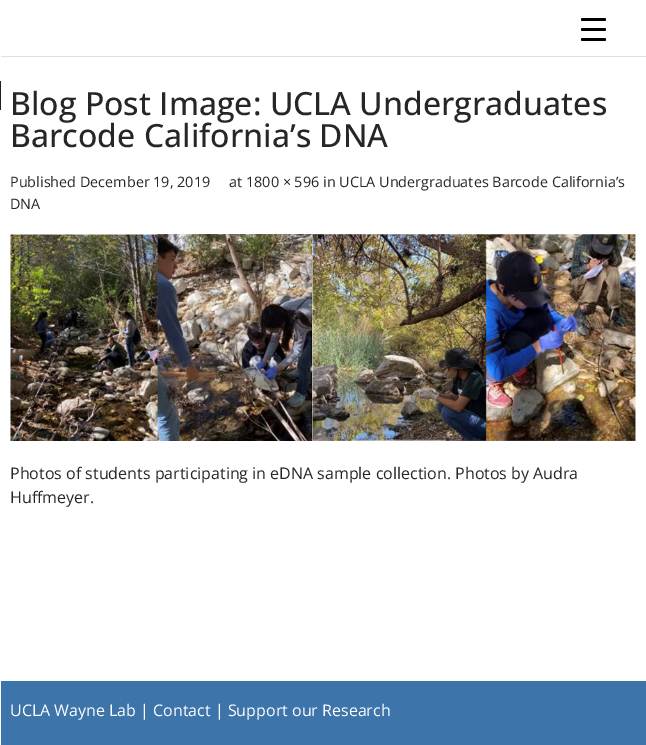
%!PS
<< /PageSize [646 745] >> setpagedevice
/f/fill load def
/C { dup -16 bitshift 255 div exch dup -8 bitshift 255 and 255 div exch 255 and 255 div setrgbcolor } def
/F { [ exch dup neg 0 0 3 -1 roll 0 0 ] selectfont } def
/T { moveto show } def
/R { rectfill } def
/Q { 5 dict begin { /r /h /w /y /x } { exch def } forall
  x r add y moveto x w add y 2 copy h add r arct x w add y h add x 1 index r arct
  x y h add x y r arct x y 2 copy exch w add exch r arct closepath end } def
/I { 5 dict begin { /h /w /y /x /name } { exch def } forall
  gsave x y translate w h scale
  w h 8 [w 0 0 h 0 0] name (r) file false 3 colorimage grestore end } def
0 745 translate 1 -1 scale
4 setmiterlimit
16#FFFFFF C
0 0 646 745 R
16#000000 C
581 28 25 3 1.5 Q f
581 18 25 3 1.5 Q f
581 38 25 3 1.5 Q f
16#E0E0E0 C
0 56 646 1 R
16#FFFFFF C
0 56 1 1 R
16#212121 C
0 81 1 29 R
/OpenSans-Medium 32 F
16#262626 C
(Blog Post Image: UCLA Undergraduates) 10 115 T
(Barcode California’s DNA) 10 147 T
/OpenSans-Regular 14.4 F
(Published December 19, 2019) 10 187 T
(at 1800 × 596 in UCLA Undergraduates Barcode California’s) 229 187 T
(DNA) 10 209 T
(1.rgb) 10 234 626 207 I
/OpenSans-Regular 16 F
(Photos of students participating in eDNA sample collection. Photos by Audra) 10 479 T
(Huffmeyer.) 10 503 T
16#3D74A9 C
1 681 645 64 R
16#FFFFFF C
(UCLA Wayne Lab | Contact | Support our Research) 10 716 T
showpage
